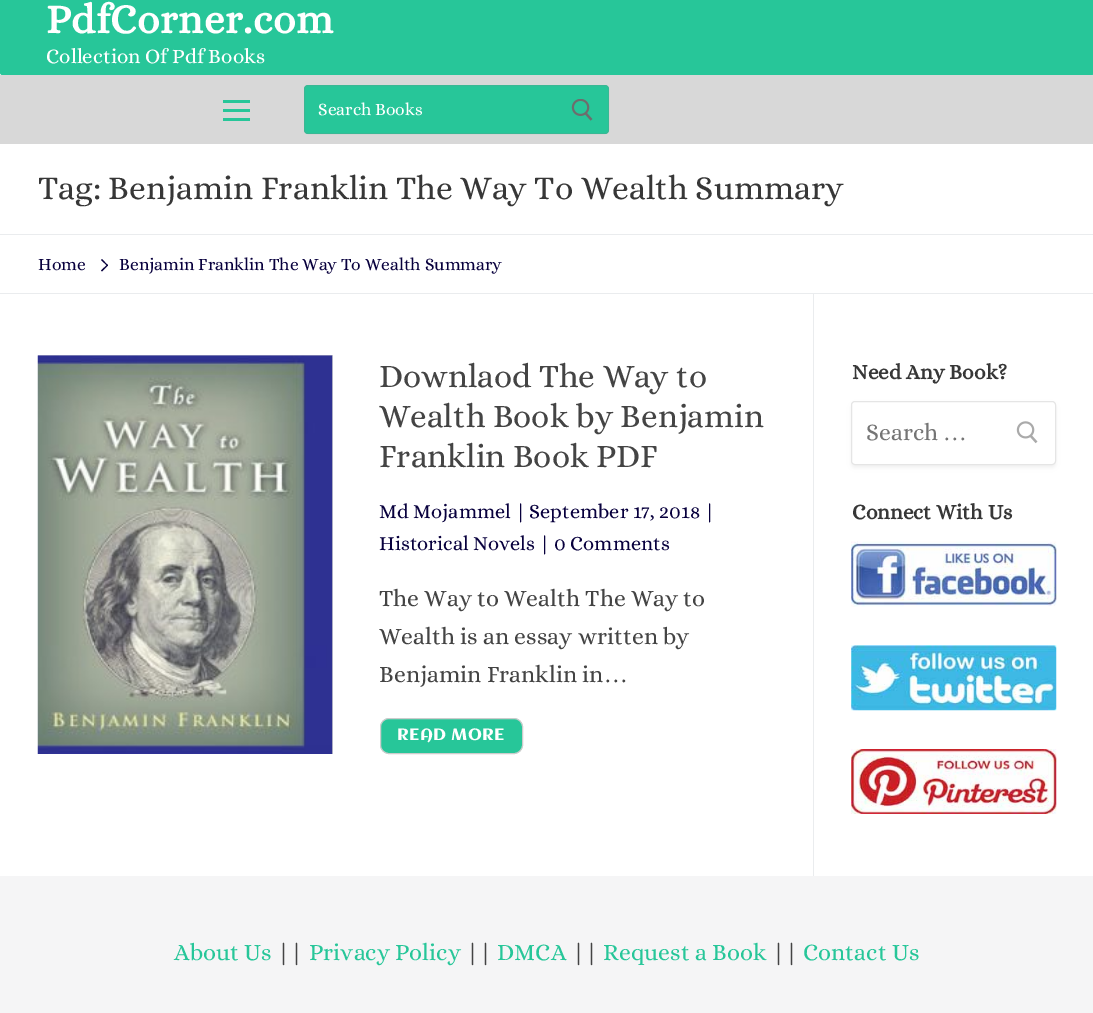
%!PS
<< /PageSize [1093 1013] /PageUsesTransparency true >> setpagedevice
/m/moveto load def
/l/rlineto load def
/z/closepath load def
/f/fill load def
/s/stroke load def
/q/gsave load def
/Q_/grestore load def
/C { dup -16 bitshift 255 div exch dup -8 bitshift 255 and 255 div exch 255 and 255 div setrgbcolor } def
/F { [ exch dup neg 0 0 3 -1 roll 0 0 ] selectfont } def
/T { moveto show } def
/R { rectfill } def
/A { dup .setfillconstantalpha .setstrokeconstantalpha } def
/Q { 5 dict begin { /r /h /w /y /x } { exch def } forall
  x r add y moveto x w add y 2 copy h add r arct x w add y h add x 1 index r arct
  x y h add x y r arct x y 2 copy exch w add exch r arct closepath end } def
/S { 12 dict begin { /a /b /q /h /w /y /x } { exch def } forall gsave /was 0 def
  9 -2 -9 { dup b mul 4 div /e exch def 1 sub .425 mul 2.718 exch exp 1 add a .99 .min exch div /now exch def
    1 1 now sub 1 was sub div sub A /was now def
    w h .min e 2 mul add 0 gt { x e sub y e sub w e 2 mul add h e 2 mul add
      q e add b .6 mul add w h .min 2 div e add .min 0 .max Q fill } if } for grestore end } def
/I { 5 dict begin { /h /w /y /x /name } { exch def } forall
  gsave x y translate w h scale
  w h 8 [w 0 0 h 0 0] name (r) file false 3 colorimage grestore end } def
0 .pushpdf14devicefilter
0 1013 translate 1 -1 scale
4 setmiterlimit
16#FFFFFF C
0 0 1093 1013 R
16#27C699 C
0 -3 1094 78 2.5 Q f
/Alice-Bold 41.25 F
16#FFFFFF C
46 33 m .5 0 (PdfCorner.com) ashow
/Alice-Regular 20.75 F
(Collection Of Pdf Books) 46 63 T
16#D8D8D8 C
0 75 1093 69 R
16#27C699 C
223 109 27 3 R
223 100 27 3 R
223 118 27 3 R
304 85 305 49 4 Q f
0.2 A
16#7F7F7F C
304.5 85.5 304 48 3.5 Q s
/Alice-Regular 17.5 F
1 A
16#FFFFFF C
(Search Books) 318 115 T
(1.rgb) 571 99 22 22 I
16#EAECEE C
0 234 1093 1 R
/Alice-Regular 33.6 F
16#373737 C
(Tag: Benjamin Franklin The Way To Wealth Summary) 38 199 T
16#EAECEE C
0 293 1093 1 R
/Alice-Regular 17.5 F
16#08003D C
(Home) 38 270 T
108 265.5 m -6 6 l -1 -1 l 6.5 -6 l z f
108 265.5 m -.5 .5 l -6.5 -6 l 1 -1 l z f
(Benjamin Franklin The Way To Wealth Summary) 119 270 T
16#EAECEE C
813 294 1 582 R
16#D5D5D5 C
38 355 295 399 R
(2.rgb) 37 355 296 399 I
/Alice-Regular 33.25 F
16#444444 C
(Downlaod The Way to) 379 387 T
(Wealth Book by Benjamin) 379 427 T
(Franklin Book PDF) 379 467 T
/Alice-Regular 20.25 F
16#08003D C
(Md Mojammel) 379 518 T
(|) 515 518 T
(September 17, 2018) 529 518 T
(|) 704 518 T
(Historical Novels) 379 550 T
(|) 539 550 T
(0 Comments) 554 550 T
/Alice-Regular 23.75 F
16#444444 C
(The Way to Wealth The Way to) 379 606 T
(Wealth is an essay written by) 379 644 T
(Benjamin Franklin in) 379 682 T
/LiberationSerif-Regular 23.75 F
(…) 604 682 T
16#27C699 C
380.5 718.5 142 35 8.5 Q q f Q_
16#CCCCCC C
s
/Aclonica-Regular 16.25 F
16#FFFFFF C
397 740 m .4 0 (READ MORE) ashow
/Alice-Bold 21.25 F
16#373737 C
(Need Any Book?) 852 379 T
16#7F7F7F C
851 404 205 64 4 2 .11 S
16#FFFFFF C
851.5 401.5 204 63 3.5 Q q f Q_
16#E5E5E5 C
s
/Alice-Regular 23.75 F
16#757575 C
(Search) 866 440 T
/LiberationSerif-Regular 23.75 F
(…) 943 440 T
(3.rgb) 1016 421 22 23 I
/Alice-Bold 21.25 F
16#373737 C
(Connect With Us) 852 519 T
(4.rgb) 851 541 206 66 I
(5.rgb) 851 645 206 66 I
(6.rgb) 851 749 206 65 I
16#F5F5F6 C
0 876 1093 137 R
/Alice-Regular 23.75 F
16#27C699 C
(About Us) 174 960 T
16#444444 C
(||) 277 960 T
16#27C699 C
(Privacy Policy) 309 960 T
16#444444 C
(||) 466 960 T
16#27C699 C
(DMCA) 497 960 T
16#444444 C
(||) 572 960 T
16#27C699 C
(Request a Book) 603 960 T
16#444444 C
(||) 772 960 T
16#27C699 C
(Contact Us) 803 960 T
.poppdf14devicefilter showpage
